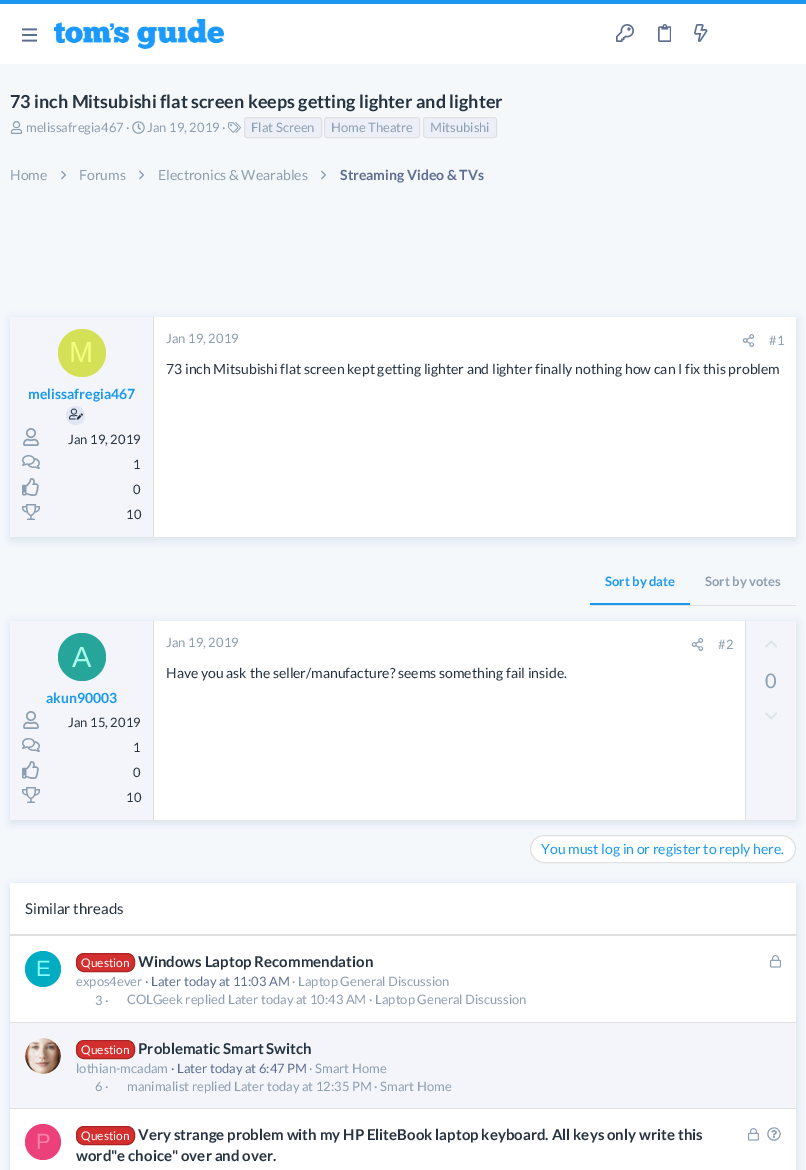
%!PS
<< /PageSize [806 1170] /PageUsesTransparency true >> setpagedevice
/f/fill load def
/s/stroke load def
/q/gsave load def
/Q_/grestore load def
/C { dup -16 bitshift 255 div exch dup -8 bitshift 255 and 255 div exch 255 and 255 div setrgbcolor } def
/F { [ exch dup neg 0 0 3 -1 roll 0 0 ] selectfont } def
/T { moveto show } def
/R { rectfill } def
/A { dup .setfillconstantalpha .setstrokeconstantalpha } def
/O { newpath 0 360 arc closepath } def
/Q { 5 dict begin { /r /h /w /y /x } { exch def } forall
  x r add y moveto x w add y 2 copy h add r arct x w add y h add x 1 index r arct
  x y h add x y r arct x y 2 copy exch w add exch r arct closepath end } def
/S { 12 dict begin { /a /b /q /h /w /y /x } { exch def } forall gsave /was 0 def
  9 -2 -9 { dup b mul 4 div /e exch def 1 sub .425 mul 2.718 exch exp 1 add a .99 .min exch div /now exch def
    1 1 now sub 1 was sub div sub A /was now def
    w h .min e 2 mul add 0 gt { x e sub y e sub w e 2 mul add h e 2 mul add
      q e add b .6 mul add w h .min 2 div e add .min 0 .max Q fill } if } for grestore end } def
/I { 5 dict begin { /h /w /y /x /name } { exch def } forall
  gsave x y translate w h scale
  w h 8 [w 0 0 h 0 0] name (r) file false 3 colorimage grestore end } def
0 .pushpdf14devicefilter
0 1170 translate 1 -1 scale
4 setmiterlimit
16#F5F8FB C
0 0 806 1170 R
16#FFFFFF C
0 4 806 60 R
16#1A98EE C
0 0 806 4 R
(1.rgb) 22 28 15 14 I
(2.rgb) 54 19 170 30 I
(3.rgb) 616 24 18 18 I
(4.rgb) 658 24 13 18 I
(5.rgb) 694 24 14 18 I
/Lato-Bold 18 F
16#263341 C
(73 inch Mitsubishi flat screen keeps getting lighter and lighter) 10 108 T
(6.rgb) 10 121 13 13 I
/Lato-Regular 13 F
16#8C9EB1 C
(melissafregia467 ·) 26 132 T
(7.rgb) 132 121 13 13 I
(Jan 19, 2019 ·) 147 132 T
(8.rgb) 228 122 13 11 I
16#ECEFF7 C
244.5 117.5 77 20 2.5 Q q f Q_
16#E0E0E0 C
s
16#8C9EB1 C
(Flat Screen) 251 132 T
16#ECEFF7 C
324.5 117.5 95 20 2.5 Q q f Q_
16#E0E0E0 C
s
16#8C9EB1 C
(Home Theatre) 331 132 T
16#ECEFF7 C
423.5 117.5 73 20 2.5 Q q f Q_
16#E0E0E0 C
s
16#8C9EB1 C
(Mitsubishi) 430 132 T
/Lato-Regular 14 F
(Home) 10 180 T
(9.rgb) 61 170 5 10 I
(Forums) 79 180 T
(10.rgb) 139 170 6 10 I
(Electronics & Wearables) 158 180 T
(9.rgb) 321 170 5 10 I
/Lato-Bold 14 F
16#5D6E90 C
(Streaming Video & TVs) 340 180 T
16#677685 C
12 317 786 220 0 4 .08 S
10 321 786 220 0 4 .12 S
16#FFFFFF C
154 317 642 220 R
16#F3F5FA C
10 317 143 220 R
16#E0E0E0 C
153 317 1 220 R
16#D4E157 C
82 353 24 O f
/LiberationSans-Regular 29 F
16#F4FF81 C
(M) 69 362 T
/Lato-Bold 14 F
16#1A98EE C
(melissafregia467) 28 399 T
16#E1E6F2 C
75.5 415.5 9.5 O f
(11.rgb) 69 408 14 12 I
(12.rgb) 23 428 16 18 I
/Lato-Regular 13 F
16#263341 C
(Jan 19, 2019) 68 444 T
(13.rgb) 22 455 18 14 I
(1) 133 469 T
(14.rgb) 22 478 17 18 I
(0) 133 494 T
(15.rgb) 22 504 18 16 I
(10) 126 519 T
16#8C9EB1 C
(Jan 19, 2019) 166 343 T
(16.rgb) 742 334 13 13 I
(#1) 769 345 T
/Lato-Regular 14 F
16#263341 C
(73 inch Mitsubishi flat screen kept getting lighter and lighter finally nothing how can I fix this problem) 166 374 T
16#E0E0E0 C
590 605 206 1 R
16#1A98EE C
590 603 100 2 R
/Lato-Bold 13 F
(Sort by date) 605 586 T
16#8C9EB1 C
(Sort by votes) 705 586 T
16#677685 C
12 621 786 199 0 4 .08 S
10 625 786 199 0 4 .12 S
16#FFFFFF C
154 621 591 199 R
16#F3F5FA C
10 621 143 199 R
16#E0E0E0 C
153 621 1 199 R
16#26A69A C
82 657 24 O f
/LiberationSans-Regular 29 F
16#A7FFEB C
(A) 72 667 T
/Lato-Bold 14 F
16#1A98EE C
(akun90003) 46 703 T
(12.rgb) 23 711 16 18 I
/Lato-Regular 13 F
16#263341 C
(Jan 15, 2019) 68 727 T
(13.rgb) 22 738 18 14 I
(1) 133 752 T
(17.rgb) 22 761 17 18 I
(0) 133 777 T
(18.rgb) 22 787 18 16 I
(10) 126 802 T
16#8C9EB1 C
(Jan 19, 2019) 166 647 T
(16.rgb) 691 638 13 13 I
(#2) 718 649 T
/Lato-Regular 14 F
16#263341 C
(Have you ask the seller/manufacture? seems something fail inside.) 166 678 T
16#F3F5FA C
746 621 50 199 R
16#E0E0E0 C
745 621 1 199 R
(19.rgb) 765 640 12 8 I
/Lato-Regular 20 F
16#8C9EB1 C
(0) 765 688 T
(20.rgb) 765 712 12 8 I
16#FFFFFF C
530.5 835.5 265 27 13.5 Q q f Q_
16#E0E0E0 C
s
/Lato-Regular 14 F
16#1A98EE C
(You must log in or register to reply here.) 541 854 T
16#677685 C
12 883 786 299 0 4 .08 S
10 887 786 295 0 4 .12 S
16#FFFFFF C
10 883 786 287 R
16#E0E0E0 C
10 934 786 2 R
/Lato-Regular 15 F
16#263341 C
(Similar threads) 25 914 T
16#00ACC1 C
43 969 18 O f
/LiberationSans-Regular 22 F
16#84FFFF C
(E) 36 976 T
16#D32F2F C
76.5 953.5 58 18 7.5 Q q f Q_
16#AB2424 C
s
/Lato-Regular 12 F
16#FFFFFF C
(Question) 81 967 T
/Lato-Bold 15 F
16#263341 C
(Windows Laptop Recommendation) 138 967 T
(21.rgb) 770 955 11 13 I
/Lato-Regular 13 F
16#8C9EB1 C
(expos4ever) 76 986 T
16#5D6E90 C
(· Later today at 11:03 AM) 145 986 T
16#8C9EB1 C
(· Laptop General Discussion) 292 986 T
(3 ·) 95 1005 T
(COLGeek replied) 127 1004 T
(Later today at 10:43 AM) 228 1004 T
(· Laptop General Discussion) 369 1004 T
16#F3F5FA C
10 1023 786 85 R
16#E0E0E0 C
10 1022 786 1 R
16#FFFFFF C
43 1056 18 O f
(22.rgb) 25 1038 36 36 I
16#D32F2F C
76.5 1040.5 58 18 7.5 Q q f Q_
16#AB2424 C
s
/Lato-Regular 12 F
16#FFFFFF C
(Question) 81 1054 T
/Lato-Bold 15 F
16#263341 C
(Problematic Smart Switch) 138 1054 T
/Lato-Regular 13 F
16#8C9EB1 C
(lothian-mcadam) 76 1073 T
16#5D6E90 C
(· Later today at 6:47 PM) 171 1073 T
16#8C9EB1 C
(· Smart Home) 309 1073 T
(6 ·) 95 1091 T
(manimalist replied) 127 1091 T
(Later today at 12:35 PM) 234 1091 T
(· Smart Home) 374 1091 T
16#E0E0E0 C
10 1108 786 1 R
16#EC407A C
43 1142 18 O f
/LiberationSans-Regular 22 F
16#FF80AB C
(P) 36 1149 T
16#D32F2F C
76.5 1126.5 58 18 7.5 Q q f Q_
16#AB2424 C
s
/Lato-Regular 12 F
16#FFFFFF C
(Question) 81 1140 T
/Lato-Bold 15 F
16#263341 C
(Very strange problem with my HP EliteBook laptop keyboard. All keys only write this) 138 1140 T
(word"e choice" over and over.) 76 1161 T
(21.rgb) 748 1128 11 13 I
(23.rgb) 767 1127 14 14 I
.poppdf14devicefilter showpage
